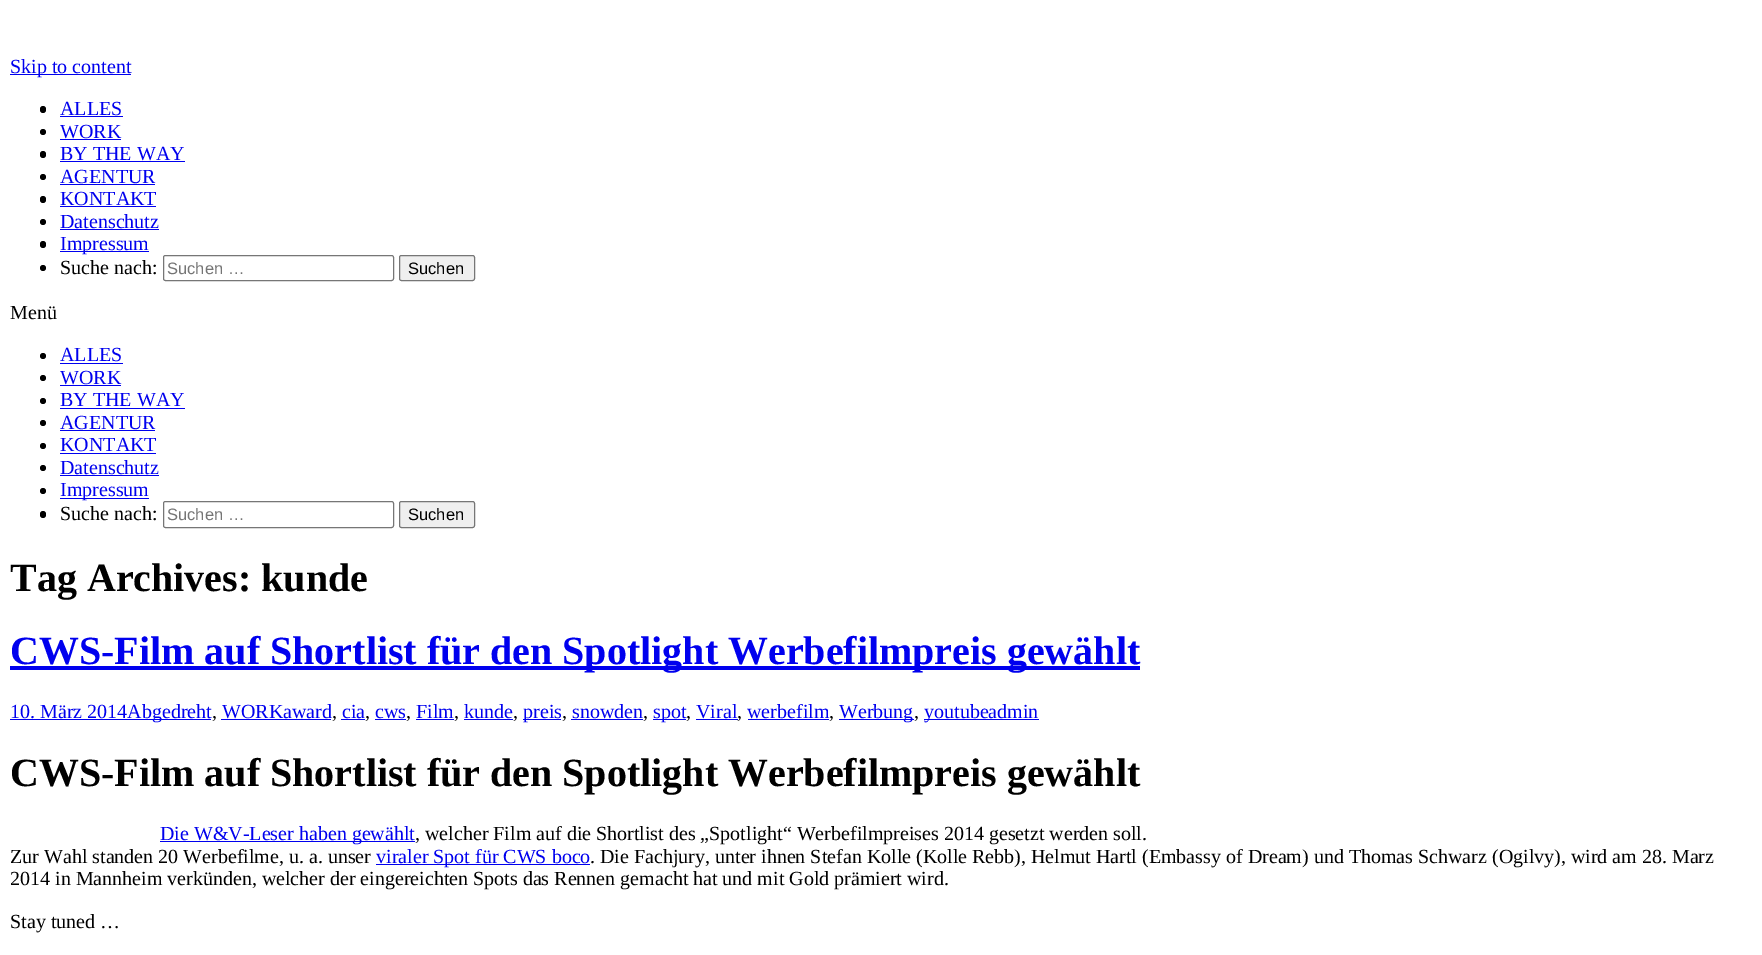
%!PS
<< /PageSize [1762 955] >> setpagedevice
/f/fill load def
/s/stroke load def
/q/gsave load def
/Q_/grestore load def
/C { dup -16 bitshift 255 div exch dup -8 bitshift 255 and 255 div exch 255 and 255 div setrgbcolor } def
/F { [ exch dup neg 0 0 3 -1 roll 0 0 ] selectfont } def
/T { moveto show } def
/R { rectfill } def
/O { newpath 0 360 arc closepath } def
/Q { 5 dict begin { /r /h /w /y /x } { exch def } forall
  x r add y moveto x w add y 2 copy h add r arct x w add y h add x 1 index r arct
  x y h add x y r arct x y 2 copy exch w add exch r arct closepath end } def
0 955 translate 1 -1 scale
4 setmiterlimit
16#FFFFFF C
0 0 1762 955 R
16#0000EE C
10 74 121 1 R
/LiberationSerif-Regular 20 F
(Skip to content) 10 73 T
16#000000 C
40 106 6 7 3 Q f
16#0000EE C
(ALLES) 60 115 T
60 116 63 1 R
16#000000 C
43 132 3 O f
16#0000EE C
(WORK) 60 138 T
60 139 61 1 R
16#000000 C
40 151 6 7 3 Q f
16#0000EE C
(BY THE WAY) 60 160 T
60 161 125 1 R
16#000000 C
43 177 3 O f
16#0000EE C
(AGENTUR) 60 183 T
60 184 95 1 R
16#000000 C
40 196 6 7 3 Q f
16#0000EE C
(KONTAKT) 60 205 T
60 206 96 1 R
16#000000 C
43 222 3 O f
16#0000EE C
(Datenschutz) 60 228 T
60 229 99 1 R
16#000000 C
40 241 6 7 3 Q f
16#0000EE C
60 251 89 1 R
(Impressum) 60 250 T
16#000000 C
43 268 3 O f
(Suche nach:) 60 274 T
16#767676 C
163.5 255.5 230 25 2 Q s
/LiberationSans-Regular 16.5 F
16#757575 C
(Suchen …) 167 274 T
16#EFEFEF C
399.5 255.5 75 25 2 Q q f Q_
16#767676 C
s
16#000000 C
(Suchen) 408 274 T
/LiberationSerif-Regular 20 F
(Menü) 10 319 T
43 356 3 O f
16#0000EE C
(ALLES) 60 361 T
60 363 63 1 R
16#000000 C
43 378 3 O f
16#0000EE C
(WORK) 60 384 T
60 385 61 1 R
16#000000 C
43 401 3 O f
16#0000EE C
(BY THE WAY) 60 406 T
60 408 125 1 R
16#000000 C
43 423 3 O f
16#0000EE C
(AGENTUR) 60 429 T
60 430 95 1 R
16#000000 C
43 446 3 O f
16#0000EE C
(KONTAKT) 60 451 T
60 453 96 1 R
16#000000 C
43 468 3 O f
16#0000EE C
(Datenschutz) 60 474 T
60 475 99 1 R
16#000000 C
43 491 3 O f
16#0000EE C
60 498 89 1 R
(Impressum) 60 496 T
16#000000 C
40 511 6 7 3 Q f
(Suche nach:) 60 520 T
16#767676 C
163.5 501.5 230 26 2 Q s
/LiberationSans-Regular 16.5 F
16#757575 C
(Suchen …) 167 520 T
16#EFEFEF C
399.5 501.5 75 26 2 Q q f Q_
16#767676 C
s
16#000000 C
(Suchen) 408 520 T
/LiberationSerif-Bold 40 F
(Tag Archives: kunde) 10 591 T
16#0000EE C
10 666 1130 4 R
(CWS-Film auf Shortlist für den Spotlight Werbefilmpreis gewählt) 10 664 T
10 719 201 1 R
/LiberationSerif-Regular 20 F
(10. März 2014Abgedreht) 10 718 T
16#000000 C
(,) 212 718 T
16#0000EE C
221 719 110 1 R
(WORKaward) 222 718 T
16#000000 C
(,) 332 718 T
16#0000EE C
(cia) 342 718 T
16#000000 C
(,) 365 718 T
16#0000EE C
341 719 24 1 R
(cws) 375 718 T
16#000000 C
(,) 406 718 T
16#0000EE C
375 719 31 1 R
(Film) 416 718 T
16#000000 C
(,) 454 718 T
16#0000EE C
416 719 38 1 R
(kunde) 464 718 T
16#000000 C
(,) 513 718 T
16#0000EE C
464 719 49 1 R
523 719 38 1 R
(preis) 523 718 T
16#000000 C
(,) 562 718 T
16#0000EE C
(snowden) 572 718 T
16#000000 C
(,) 643 718 T
16#0000EE C
571 719 72 1 R
653 719 33 1 R
(spot) 653 718 T
16#000000 C
(,) 686 718 T
16#0000EE C
(Viral) 696 718 T
696 719 42 1 R
16#000000 C
(,) 737 718 T
16#0000EE C
(werbefilm) 747 718 T
16#000000 C
(,) 829 718 T
16#0000EE C
748 719 81 1 R
839 719 75 1 R
(Werbung) 839 718 T
16#000000 C
(,) 914 718 T
16#0000EE C
924 719 115 1 R
(youtubeadmin) 924 718 T
/LiberationSerif-Bold 40 F
16#000000 C
(CWS-Film auf Shortlist für den Spotlight Werbefilmpreis gewählt) 10 786 T
16#0000EE C
160 841 255 1 R
/LiberationSerif-Regular 20 F
(Die W&V-Leser haben gewählt) 160 840 T
16#000000 C
(, welcher Film auf die Shortlist des „Spotlight“ Werbefilmpreises 2014 gesetzt werden soll.) 415 840 T
(Zur Wahl standen 20 Werbefilme, u. a. unser) 10 863 T
16#0000EE C
376 864 214 1 R
(viraler Spot für CWS boco) 376 863 T
16#000000 C
(. Die Fachjury, unter ihnen Stefan Kolle \(Kolle Rebb\), Helmut Hartl \(Embassy of Dream\) und Thomas Schwarz \(Ogilvy\), wird am 28. Marz) 590 863 T
(2014 in Mannheim verkünden, welcher der eingereichten Spots das Rennen gemacht hat und mit Gold prämiert wird.) 10 885 T
(Stay tuned …) 10 928 T
showpage
